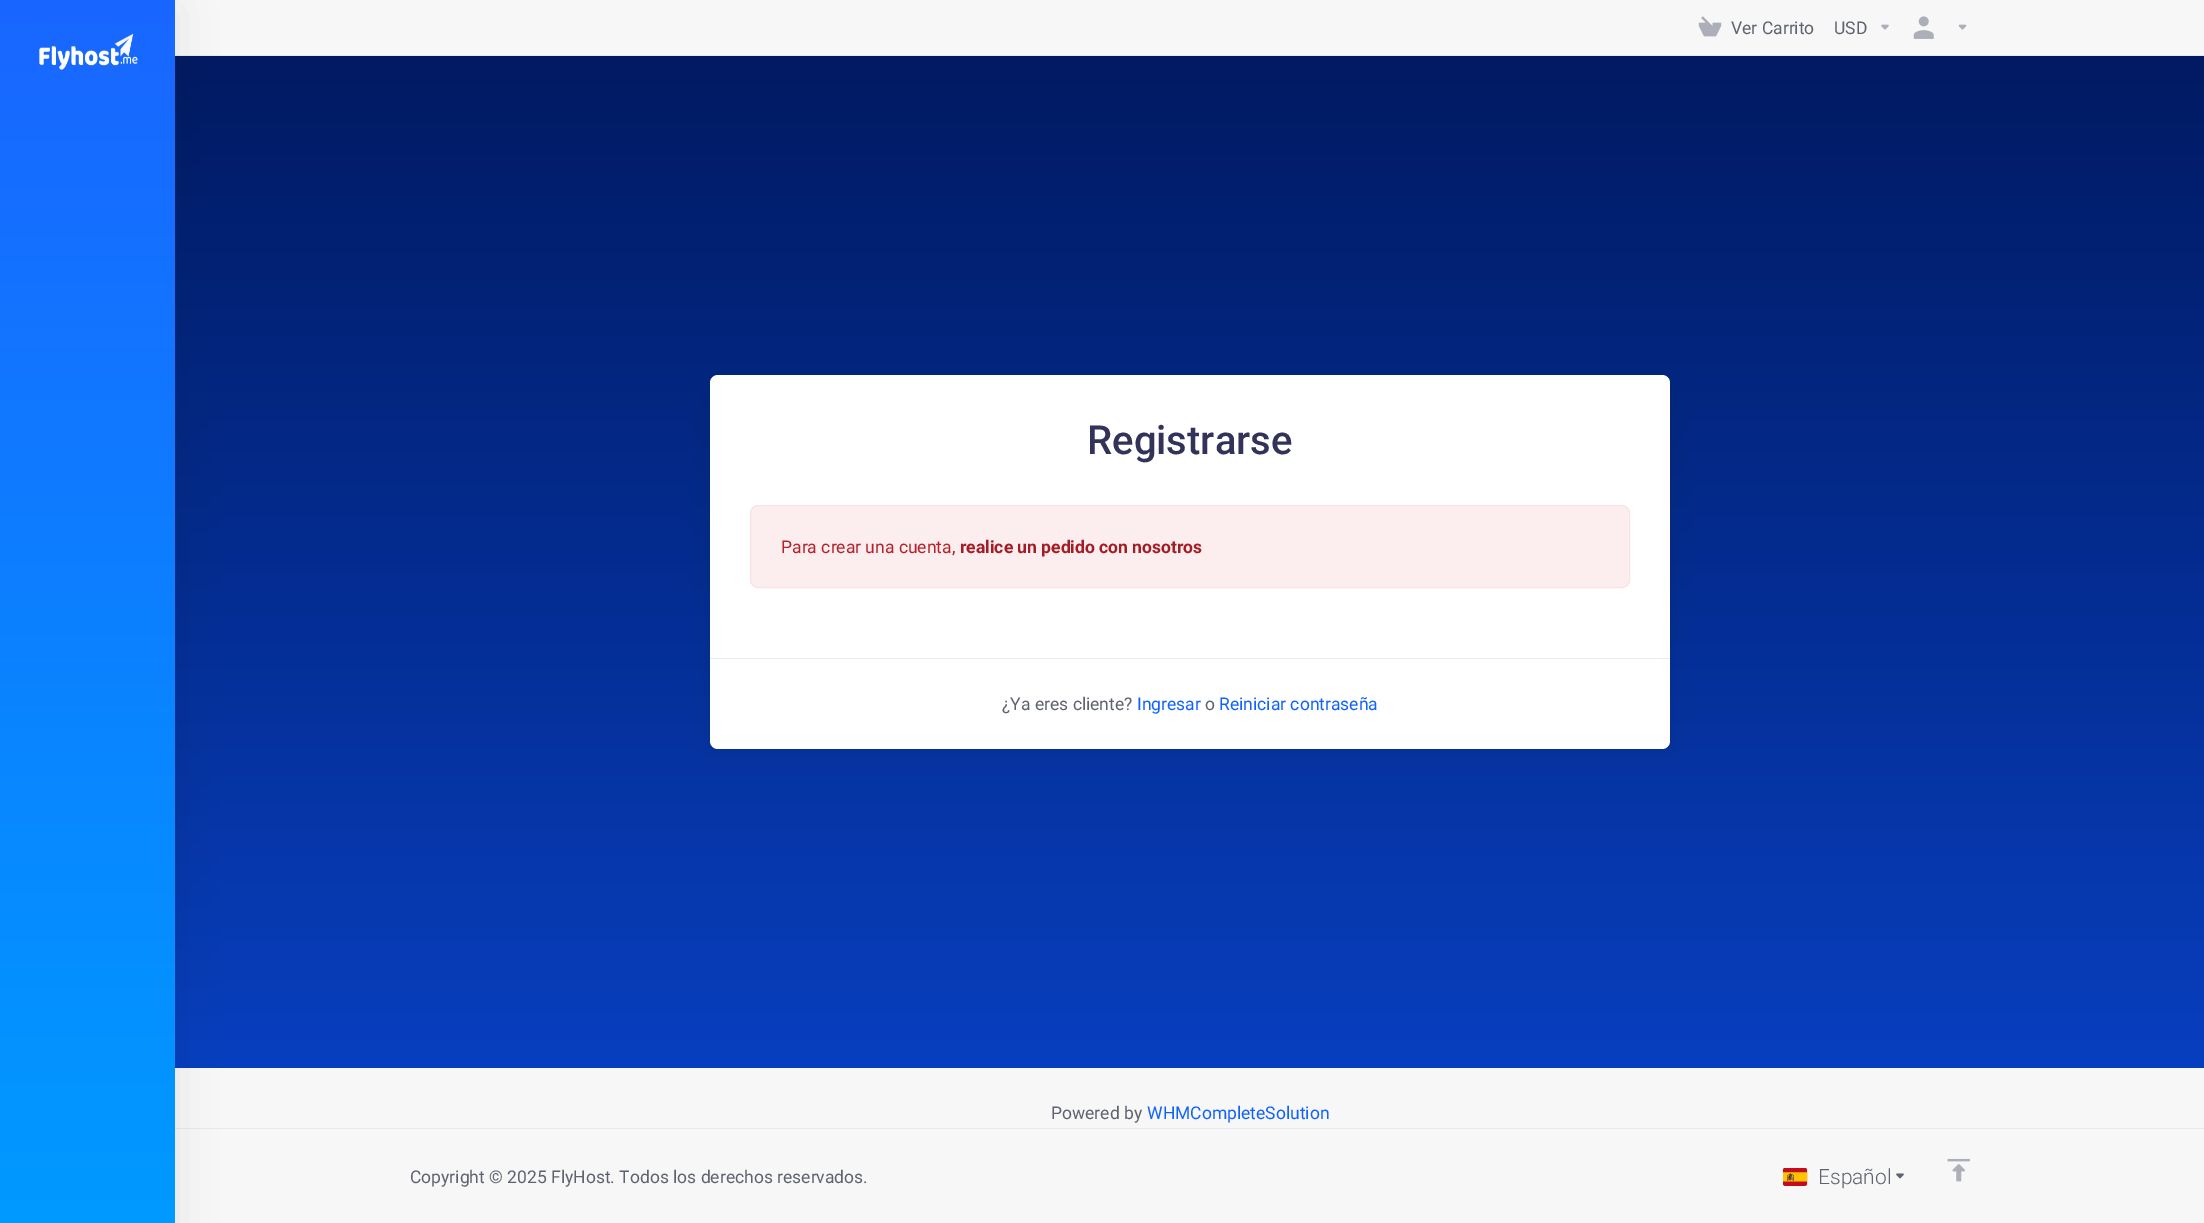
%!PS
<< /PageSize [2204 1223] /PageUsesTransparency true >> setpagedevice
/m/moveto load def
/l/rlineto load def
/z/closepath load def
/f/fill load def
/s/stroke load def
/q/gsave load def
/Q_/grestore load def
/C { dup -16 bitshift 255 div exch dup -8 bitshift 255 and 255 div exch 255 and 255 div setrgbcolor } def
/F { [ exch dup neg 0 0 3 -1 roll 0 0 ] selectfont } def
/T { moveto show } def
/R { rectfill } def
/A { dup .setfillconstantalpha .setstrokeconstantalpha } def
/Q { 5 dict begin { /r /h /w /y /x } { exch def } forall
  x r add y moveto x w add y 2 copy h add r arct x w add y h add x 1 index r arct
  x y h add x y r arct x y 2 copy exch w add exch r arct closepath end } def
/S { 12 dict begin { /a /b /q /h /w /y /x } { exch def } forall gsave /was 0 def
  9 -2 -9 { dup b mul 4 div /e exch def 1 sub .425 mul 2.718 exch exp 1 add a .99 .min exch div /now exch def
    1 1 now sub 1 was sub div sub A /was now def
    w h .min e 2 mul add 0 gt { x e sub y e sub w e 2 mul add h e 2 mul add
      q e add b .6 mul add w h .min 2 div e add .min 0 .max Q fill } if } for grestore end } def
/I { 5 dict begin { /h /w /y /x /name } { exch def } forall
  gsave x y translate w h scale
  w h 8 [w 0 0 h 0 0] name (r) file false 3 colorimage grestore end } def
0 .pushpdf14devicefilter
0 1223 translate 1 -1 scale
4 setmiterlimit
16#F7F7F8 C
0 0 2204 1223 R
16#E9EAEC C
175 55 2029 1 R
q 175 56 m 2029 0 l 0 1012 l -2029 0 l z clip newpath
<< /ShadingType 2 /ColorSpace /DeviceRGB /Coords [1190 1068 1190 56] /Extend [true true] /Function << /FunctionType 2 /Domain [0 1] /C0 [.031 .247 .749] /C1 [.004 .102 .384] /N 1 >> >> shfill Q_
175 1128 2029 1 R
16#000000 C
0 10 175 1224 0 20 .08 S
q 0 0 m 175 0 l 0 1223 l -175 0 l z clip newpath
<< /ShadingType 2 /ColorSpace /DeviceRGB /Coords [88 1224 88 0] /Extend [true true] /Function << /FunctionType 2 /Domain [0 1] /C0 [0 .604 1] /C1 [.098 .4 1] /N 1 >> >> shfill Q_
(1.rgb) 39 33 99 47 I
(2.rgb) 1698 16 24 21 I
/Roboto-Regular 17.5 F
16#5E636E C
(Ver Carrito) 1731 34 T
(USD) 1834 34 T
(3.rgb) 1881 24 8 6 I
(4.rgb) 1913 16 21 23 I
(5.rgb) 1958 24 9 6 I
16#000000 C
710 378 960 373 8 10 .08 S
710 375 960 374 8 .5 .1 S
16#FFFFFF C
710 375 960 374 8 Q f
/Roboto-Medium 40 F
16#333258 C
(Registrarse) 1087 454 T
16#FCEEEF C
750.5 505.5 879 82 7.5 Q q f Q_
16#FAE1E2 C
s
/Roboto-Regular 17.5 F
16#B6202A C
(Para crear una cuenta,) 781 553 T
/Roboto-Bold 17.5 F
16#A41D26 C
(realice un pedido con nosotros) 960 553 T
16#E9EAEC C
710 658 960 1 R
/Roboto-Regular 17.5 F
16#5E636E C
(¿Ya eres cliente?) 1002 710 T
16#1062FE C
(Ingresar) 1137 710 T
16#5E636E C
(o) 1205 710 T
16#1062FE C
(Reiniciar contraseña) 1219 710 T
16#5E636E C
(Powered by) 1051 1119 T
16#1062FE C
(WHMCompleteSolution) 1147 1119 T
16#5E636E C
(Copyright © 2025 FlyHost. Todos los derechos reservados.) 410 1183 T
(6.rgb) 1783 1168 25 18 I
/Roboto-Light 21 F
(Español) 1818 1184 T
(7.rgb) 1896 1173 8 6 I
(8.rgb) 1947 1158 23 24 I
.poppdf14devicefilter showpage
